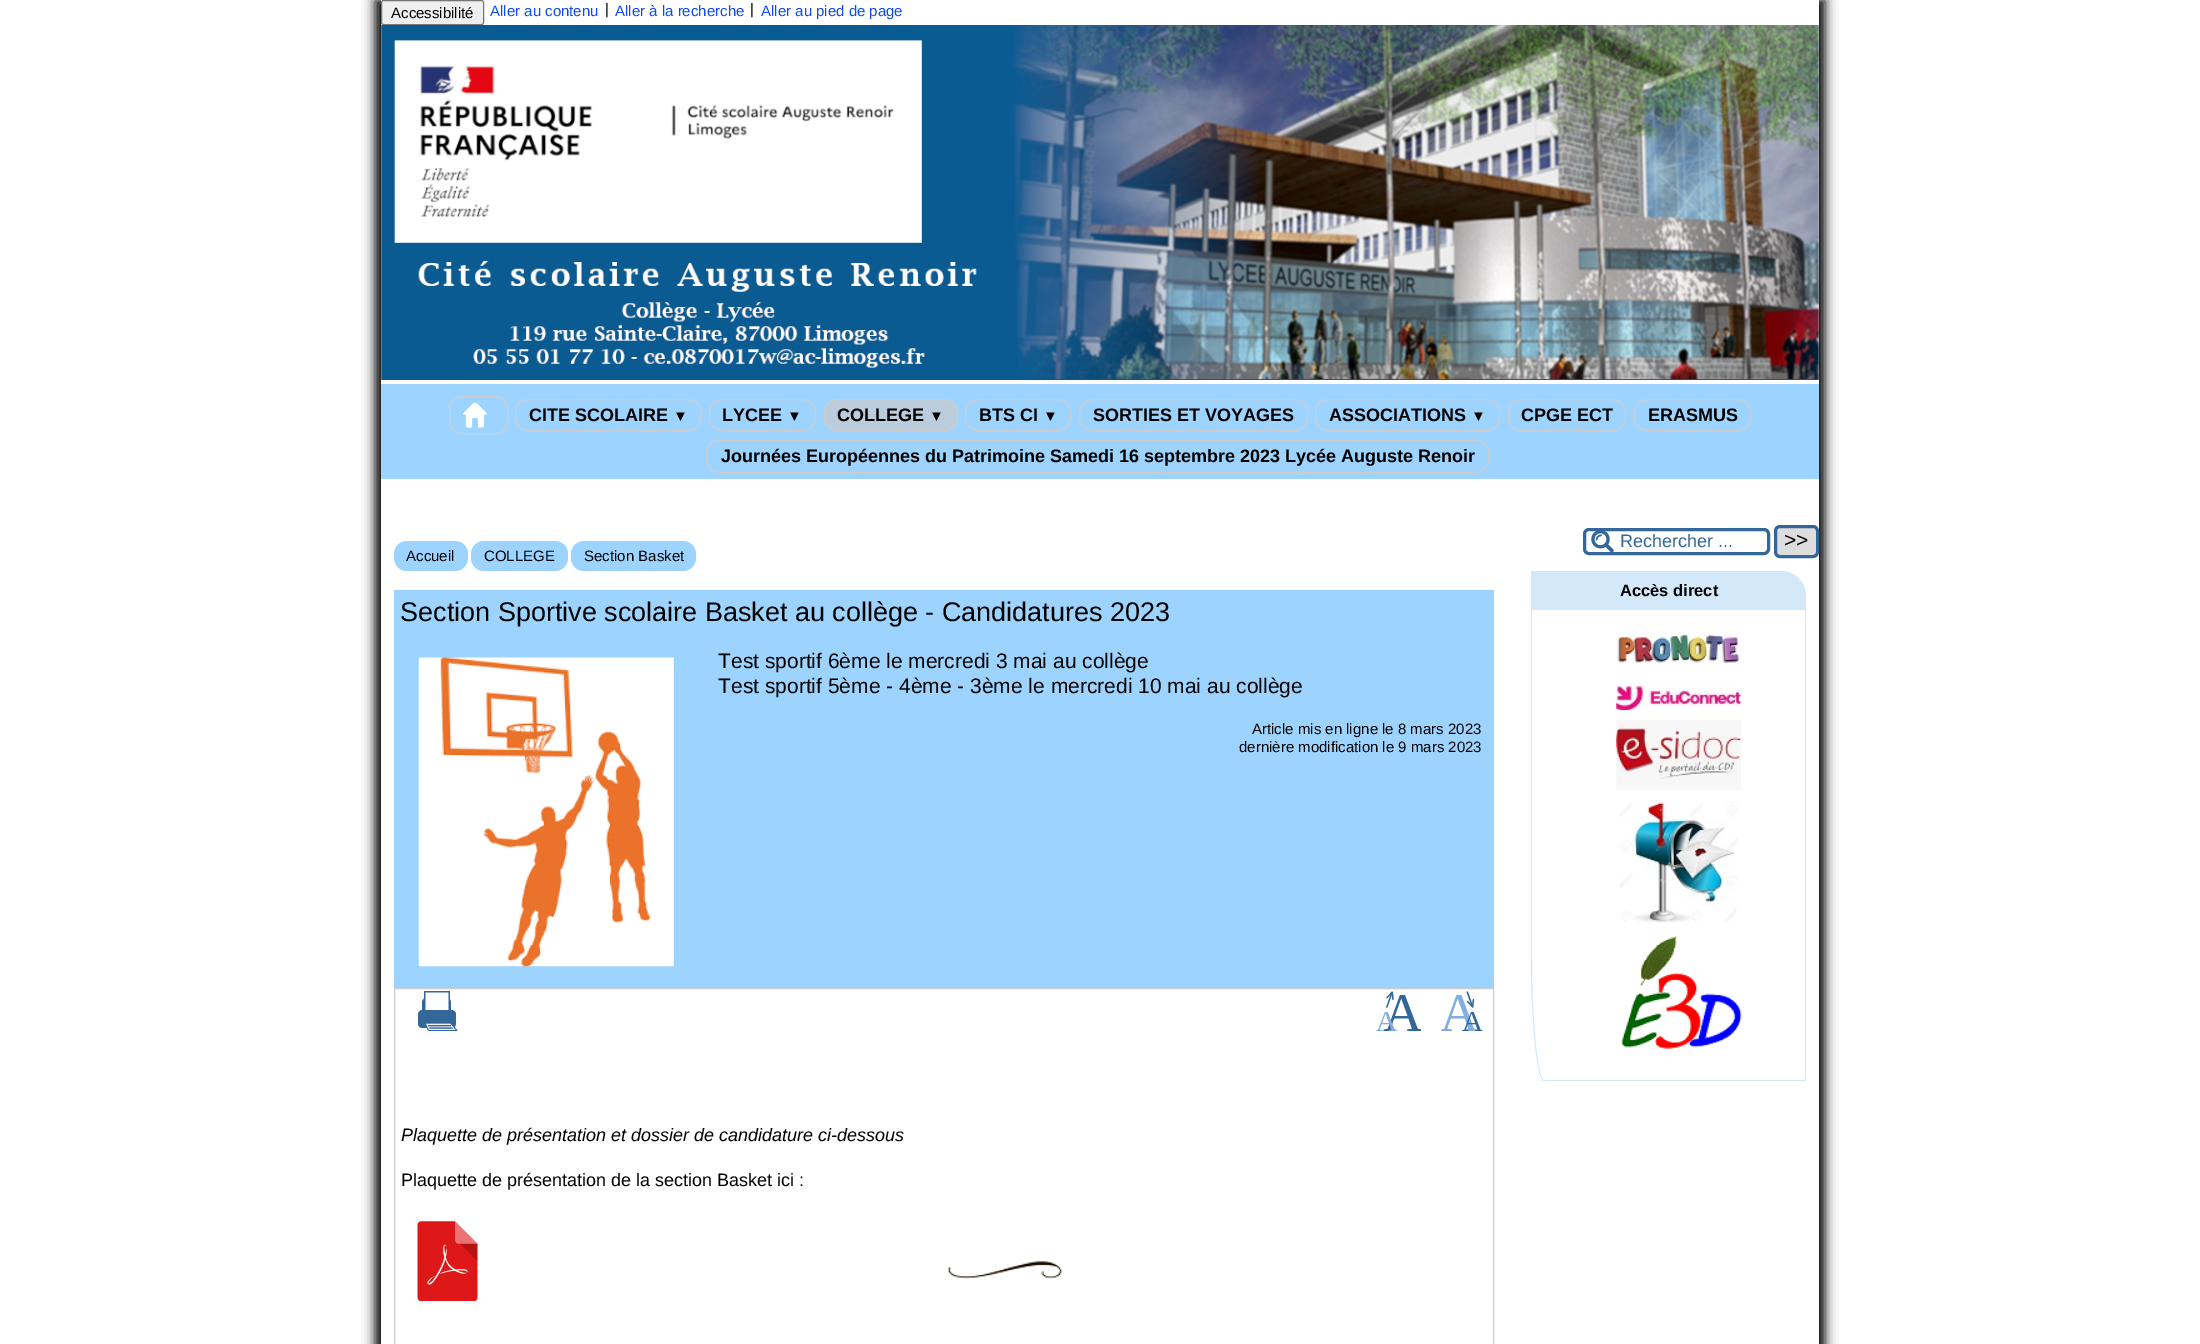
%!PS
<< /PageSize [2200 1344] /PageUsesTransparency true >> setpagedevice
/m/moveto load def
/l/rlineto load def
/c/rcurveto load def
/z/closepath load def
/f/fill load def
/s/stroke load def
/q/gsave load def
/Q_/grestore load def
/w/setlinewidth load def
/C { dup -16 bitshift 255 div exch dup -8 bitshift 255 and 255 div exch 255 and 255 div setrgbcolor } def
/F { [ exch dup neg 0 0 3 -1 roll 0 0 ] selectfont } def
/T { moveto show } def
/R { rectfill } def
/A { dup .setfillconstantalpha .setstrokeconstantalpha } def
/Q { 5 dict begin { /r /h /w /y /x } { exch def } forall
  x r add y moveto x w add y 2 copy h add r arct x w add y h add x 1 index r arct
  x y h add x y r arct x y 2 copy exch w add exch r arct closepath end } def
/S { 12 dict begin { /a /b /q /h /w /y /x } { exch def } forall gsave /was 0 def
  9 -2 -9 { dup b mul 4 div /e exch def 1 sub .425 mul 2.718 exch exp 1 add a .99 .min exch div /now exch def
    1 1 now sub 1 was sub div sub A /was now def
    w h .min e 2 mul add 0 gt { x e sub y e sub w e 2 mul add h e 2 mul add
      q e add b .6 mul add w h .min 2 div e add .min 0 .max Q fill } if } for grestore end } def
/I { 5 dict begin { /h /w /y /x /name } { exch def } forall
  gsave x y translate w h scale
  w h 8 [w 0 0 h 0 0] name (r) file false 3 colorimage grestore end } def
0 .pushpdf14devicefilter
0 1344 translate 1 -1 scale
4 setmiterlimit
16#FFFFFF C
0 0 2200 1344 R
16#000000 C
375 0 1438 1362 0 6 1 S
388 0 1437 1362 0 6 1 S
16#FFFFFF C
381 0 1438 1344 R
16#EFEFEF C
381.5 .5 102 24 2 Q q f Q_
16#767676 C
s
/LiberationSans-Regular 15 F
16#000000 C
(Accessibilité) 391 18 T
16#0E4BEF C
(Aller au contenu) 490 16 T
16#000000 C
(|) 605 14 T
16#0E4BEF C
(Aller à la recherche) 615 16 T
16#000000 C
(|) 750 14 T
16#0E4BEF C
(Aller au pied de page) 761 16 T
(1.rgb) 381 25 1438 355 I
16#9DD4FF C
381 384 1438 95 R
16#CCCCCC C
449.5 396.5 58 37 12.5 Q s
(2.rgb) 463 403 25 25 I
515.5 399.5 185 31 12.5 Q s
/LiberationSans-Bold 18 F
16#000000 C
(CITE SCOLAIRE) 529 421 T
/LiberationSans-Bold 15 F
(▼) 673 421 T
16#CCCCCC C
709.5 399.5 106 31 12.5 Q s
/LiberationSans-Bold 18 F
16#000000 C
(LYCEE) 722 421 T
/LiberationSans-Bold 15 F
(▼) 787 421 T
16#BBCCDD C
824.5 399.5 133 31 12.5 Q q f Q_
16#CCCCCC C
s
/LiberationSans-Bold 18 F
16#000000 C
(COLLEGE) 837 421 T
/LiberationSans-Bold 15 F
(▼) 929 421 T
16#CCCCCC C
965.5 399.5 105 31 12.5 Q s
/LiberationSans-Bold 18 F
16#000000 C
(BTS CI) 979 421 T
/LiberationSans-Bold 15 F
(▼) 1043 421 T
16#CCCCCC C
1079.5 399.5 228 31 12.5 Q s
/LiberationSans-Bold 18 F
16#000000 C
(SORTIES ET VOYAGES) 1093 421 T
16#CCCCCC C
1315.5 399.5 184 31 12.5 Q s
16#000000 C
(ASSOCIATIONS) 1329 421 T
/LiberationSans-Bold 15 F
(▼) 1471 421 T
16#CCCCCC C
1508.5 399.5 117 31 12.5 Q s
/LiberationSans-Bold 18 F
16#000000 C
(CPGE ECT) 1521 421 T
16#CCCCCC C
1634.5 399.5 116 31 12.5 Q s
16#000000 C
(ERASMUS) 1648 421 T
16#CCCCCC C
706.5 440.5 782 32 12.5 Q s
16#000000 C
(Journées Européennes du Patrimoine Samedi 16 septembre 2023 Lycée Auguste Renoir) 721 462 T
16#9DD4FF C
394 541 74 30 13 Q f
/LiberationSans-Regular 15 F
16#000000 C
(Accueil) 406 561 T
16#9DD4FF C
471 541 97 30 13 Q f
16#000000 C
(COLLEGE) 484 561 T
16#9DD4FF C
571 541 125 30 13 Q f
16#000000 C
(Section Basket) 584 561 T
16#9DD4FF C
394 590 1100 398 R
/LiberationSans-Regular 27 F
16#000000 C
(Section Sportive scolaire Basket au collège - Candidatures 2023) 400 621 T
(3.rgb) 418 657 256 310 I
/LiberationSans-Regular 21 F
(Test sportif 6ème le mercredi 3 mai au collège) 718 668 T
(Test sportif 5ème - 4ème - 3ème le mercredi 10 mai au collège) 718 693 T
/LiberationSans-Regular 15 F
(Article mis en ligne le 8 mars 2023) 1252 734 T
(dernière modification le 9 mars 2023) 1239 752 T
16#CCCCCC C
394.5 988.5 1099 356 rectstroke
(4.rgb) 418 991 40 40 I
(5.rgb) 1376 991 45 40 I
(6.rgb) 1441 991 42 40 I
/LiberationSans-Italic 18 F
16#000000 C
(Plaquette de présentation et dossier de candidature ci-dessous) 401 1141 T
/LiberationSans-Regular 18 F
(Plaquette de présentation de la section Basket ici :) 401 1186 T
(7.rgb) 417 1221 61 80 I
(8.rgb) 947 1261 115 18 I
(9.rgb) 1591 531 23 21 I
16#336699 C
3 w
1584.5 529.5 184 24 4.5 Q s
(Rechercher ...) 1620 547 T
16#DDDDDD C
1775.5 526.5 42 30 4.5 Q q f Q_
16#336699 C
s
/LiberationSans-Regular 21 F
16#000000 C
(>>) 1784 547 T
16#D3E8F9 C
1531 571 m 250 0 l 14 0 25 11 25 25 c 0 14 l -275 0 l z f
/LiberationSans-Bold 16.5 F
16#000000 C
(Accès direct) 1620 596 T
16#D3E8F9 C
1531 610 m 275 0 l 0 471 l -262 0 l -7 0 -13 -56 -13 -125 c z 1532 610 m 273 0 l 0 470 l -261 0 l -6 0 -12 -55 -12 -124 c z eofill
(10.rgb) 1616 622 125 41 I
(11.rgb) 1616 686 126 24 I
(12.rgb) 1616 720 126 70 I
(13.rgb) 1619 800 119 123 I
(14.rgb) 1621 936 121 113 I
.poppdf14devicefilter showpage
